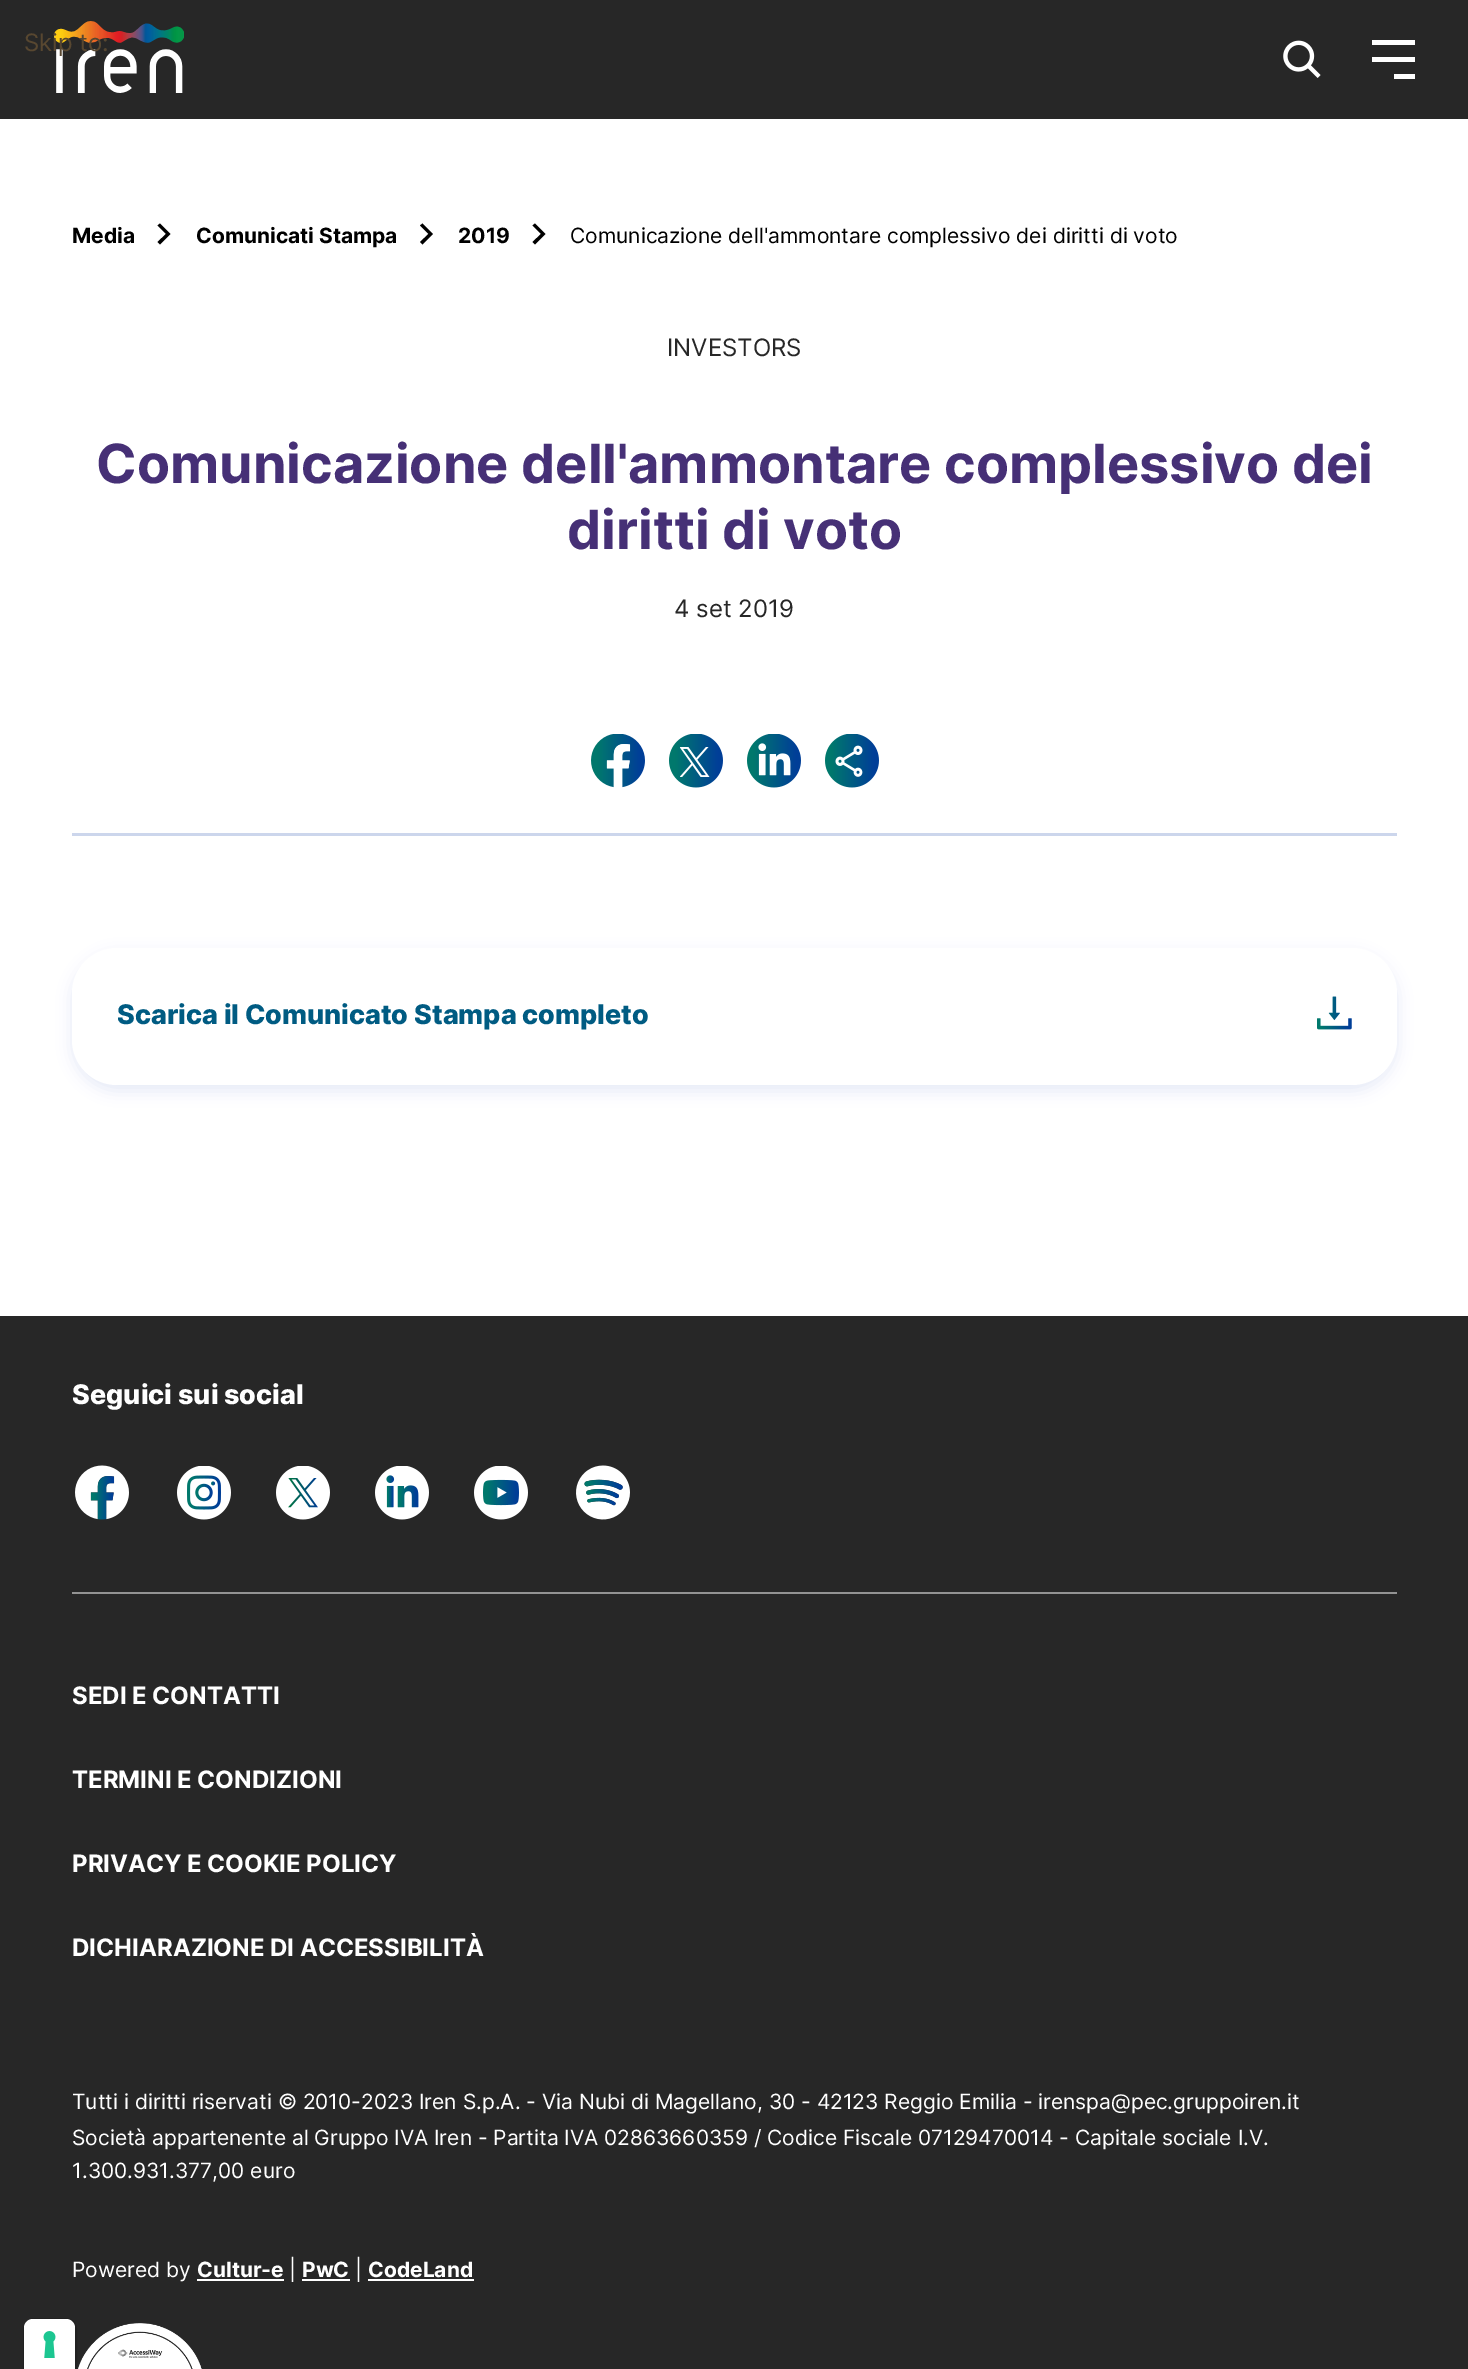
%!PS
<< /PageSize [1468 2369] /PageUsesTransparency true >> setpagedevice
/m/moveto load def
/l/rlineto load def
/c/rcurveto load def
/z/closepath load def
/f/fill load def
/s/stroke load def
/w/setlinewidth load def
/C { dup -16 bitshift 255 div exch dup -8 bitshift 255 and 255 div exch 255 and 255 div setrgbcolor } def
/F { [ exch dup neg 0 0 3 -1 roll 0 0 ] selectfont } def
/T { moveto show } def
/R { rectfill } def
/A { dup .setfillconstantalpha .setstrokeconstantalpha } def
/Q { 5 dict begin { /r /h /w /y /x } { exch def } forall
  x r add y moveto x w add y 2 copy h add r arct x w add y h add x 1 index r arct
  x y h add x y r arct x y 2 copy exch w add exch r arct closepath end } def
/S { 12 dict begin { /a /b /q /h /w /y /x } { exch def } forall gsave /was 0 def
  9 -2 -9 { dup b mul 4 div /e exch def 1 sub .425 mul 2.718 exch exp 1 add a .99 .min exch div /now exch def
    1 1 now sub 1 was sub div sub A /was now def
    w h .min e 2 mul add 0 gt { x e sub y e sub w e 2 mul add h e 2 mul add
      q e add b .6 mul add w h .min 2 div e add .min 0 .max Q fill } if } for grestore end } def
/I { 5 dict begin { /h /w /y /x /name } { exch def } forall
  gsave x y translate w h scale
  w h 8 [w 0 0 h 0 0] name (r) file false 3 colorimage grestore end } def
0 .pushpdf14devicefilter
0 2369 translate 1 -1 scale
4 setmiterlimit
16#FFFFFF C
0 0 1468 2369 R
16#272727 C
0 0 1468 119 R
(1.rgb) 54 21 130 72 I
(2.rgb) 1283 40 38 38 I
16#FFFFFF C
1394 74 m 21 0 l 0 5 l -21 0 l z 1372 57 m 43 0 l 0 5 l -43 0 l z 1372 40 m 43 0 l 0 5 l -43 0 l z f
/Inter-Regular 24 F
16#584730 C
(Skip to:) 24 51 T
/Inter-Bold 21 F
16#000000 C
(Media) 72 243 T
160 223.5 m -2.5 2 l 8.5 8.5 l -8.5 8 l 2.5 2.5 l 10.5 -10.5 l z f
(Comunicati Stampa) 196 243 T
422.5 223.5 m -2.5 2 l 8.5 8.5 l -8.5 8 l 2.5 2.5 l 10.5 -10.5 l z f
(2019) 458 243 T
535 223.5 m -2.5 2 l 8.5 8.5 l -8.5 8 l 2.5 2.5 l 10.5 -10.5 l z f
/Inter-Regular 21 F
(Comunicazione dell'ammontare complessivo dei diritti di voto) 570 243 T
/Inter-Regular 24 F
16#272727 C
(INVESTORS) 667 356 T
/Inter-Bold 54 F
16#463076 C
(Comunicazione dell'ammontare complessivo dei) 96 483 T
(diritti di voto) 567 549 T
/Inter-Regular 24 F
16#272727 C
(4 set 2019) 674 617 T
(3.rgb) 591 734 54 54 I
(4.rgb) 669 734 54 54 I
(5.rgb) 747 734 54 54 I
(6.rgb) 825 734 54 54 I
16#CCD6EC C
72 833 1325 3 R
16#0033A0 C
72 954 1325 137 45 7.5 .1 S
16#FFFFFF C
72 948 1325 137 45 Q f
/Inter-ExtraBold 27 F
16#005B82 C
(Scarica il Comunicato Stampa completo) 117 1024 T
(7.rgb) 1317 996 35 34 I
16#272727 C
0 1316 1468 1053 R
16#FFFFFF C
(Seguici sui social) 72 1404 T
(8.rgb) 75 1465 54 55 I
(9.rgb) 177 1466 54 54 I
(10.rgb) 276 1466 54 54 I
(11.rgb) 375 1466 54 54 I
(12.rgb) 474 1466 54 54 I
(13.rgb) 576 1465 54 55 I
16#939393 C
72 1592 1325 2 R
/Inter-Bold 24 F
16#FFFFFF C
(SEDI E CONTATTI) 72 1704 T
(TERMINI E CONDIZIONI) 72 1788 T
(PRIVACY E COOKIE POLICY) 72 1872 T
(DICHIARAZIONE DI ACCESSIBILITÀ) 72 1956 T
/Inter-Regular 21 F
(Tutti i diritti riservati © 2010-2023 Iren S.p.A. - Via Nubi di Magellano, 30 - 42123 Reggio Emilia - irenspa@pec.gruppoiren.it) 72 2109 T
(Società appartenente al Gruppo IVA Iren - Partita IVA 02863660359 / Codice Fiscale 07129470014 - Capitale sociale I.V.) 72 2145 T
(1.300.931.377,00 euro) 72 2178 T
(Powered by) 72 2277 T
/Inter-Bold 21 F
(Cultur-e) 197 2277 T
197 2279 87 2 R
/Inter-Regular 21 F
(|) 289 2277 T
/Inter-Bold 21 F
(PwC) 302 2277 T
302 2279 48 2 R
/Inter-Regular 21 F
(|) 355 2277 T
/Inter-Bold 21 F
(CodeLand) 368 2277 T
368 2279 106 2 R
(14.rgb) 78 2323 124 46 I
16#212121 C
2 w
34 2319 m 32 0 l 5.5 0 10 4.5 10 10 c 0 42 l -52 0 l 0 -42 l 0 -5.5 4.5 -10 10 -10 c z s
16#FFFFFF C
33 2319 m 33 0 l 5 0 9 4 9 9 c 0 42 l -51 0 l 0 -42 l 0 -5 4 -9 9 -9 c z f
(15.rgb) 43 2331 13 27 I
.poppdf14devicefilter showpage
